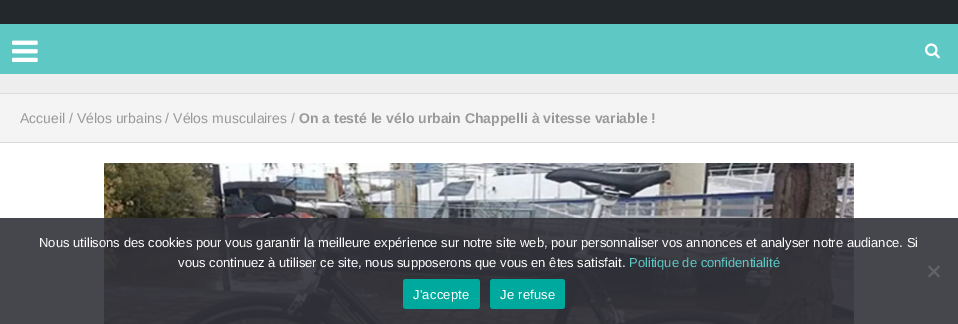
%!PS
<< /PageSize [958 324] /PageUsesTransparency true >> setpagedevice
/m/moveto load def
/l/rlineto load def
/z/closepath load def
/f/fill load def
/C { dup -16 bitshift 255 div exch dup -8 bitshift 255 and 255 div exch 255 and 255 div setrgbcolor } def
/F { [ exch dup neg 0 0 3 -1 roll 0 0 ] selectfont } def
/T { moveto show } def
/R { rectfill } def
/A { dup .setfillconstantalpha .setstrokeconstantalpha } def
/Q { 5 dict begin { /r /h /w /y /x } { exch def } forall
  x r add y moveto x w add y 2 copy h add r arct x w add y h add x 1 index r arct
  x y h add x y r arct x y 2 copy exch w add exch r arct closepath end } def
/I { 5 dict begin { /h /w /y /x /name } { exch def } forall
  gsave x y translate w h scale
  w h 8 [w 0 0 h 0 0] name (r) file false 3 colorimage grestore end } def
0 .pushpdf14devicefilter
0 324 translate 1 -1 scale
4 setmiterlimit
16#EEEEEE C
0 0 958 324 R
16#23282D C
0 0 958 24 R
16#5DC8C4 C
0 24 958 50 R
(1.rgb) 12 40 26 22 I
(2.rgb) 925 43 15 16 I
16#DDDDDD C
-.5 93.5 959 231 rectstroke
16#FFFFFF C
0 143 958 181 R
16#F4F4F4 C
0 94 958 48 R
16#DADADA C
0 142 958 1 R
/LiberationSans-Regular 14 F
16#999999 C
(Accueil / Vélos urbains / Vélos musculaires /) 20 123 T
/LiberationSans-Bold 14 F
(On a testé le vélo urbain Chappelli à vitesse variable !) 299 123 T
(3.rgb) 104 163 750 161 I
0.9 A
16#32323A C
0 218 958 106 R
/LiberationSans-Regular 13 F
1 A
16#FFFFFF C
(Nous utilisons des cookies pour vous garantir la meilleure expérience sur notre site web, pour personnaliser vos annonces et analyser notre audiance. Si) 39 247 T
(vous continuez à utiliser ce site, nous supposerons que vous en êtes satisfait.) 178 267 T
16#5DC8C4 C
(Politique de confidentialité) 629 267 T
16#636367 C
938.5 265.5 m 1.5 1.5 l -10.5 10.5 l -1.5 -1.5 l z f
928 267 m 1.5 -1.5 l 10.5 10.5 l -1.5 1.5 l z f
16#00A99D C
403 279 77 30 3 Q f
16#FFFFFF C
413 299 m .25 0 (J'accepte) ashow
16#00A99D C
490 279 75 30 3 Q f
16#FFFFFF C
500 299 m .25 0 (Je refuse) ashow
.poppdf14devicefilter showpage
